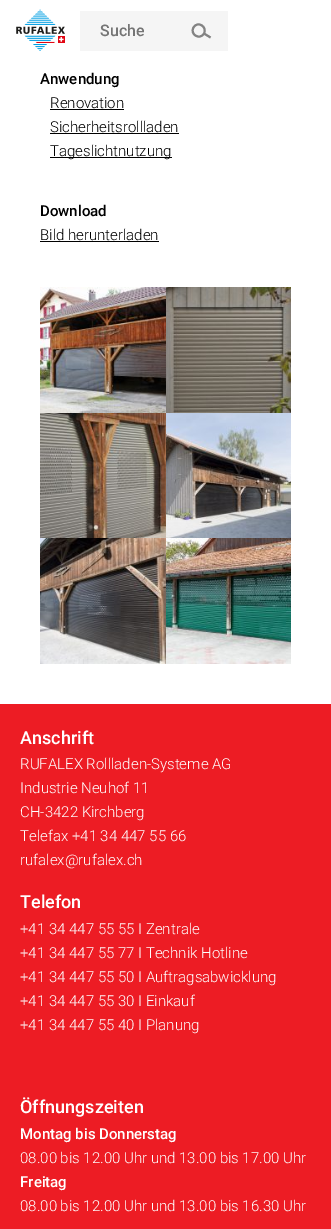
%!PS
<< /PageSize [331 1229] >> setpagedevice
/m/moveto load def
/l/rlineto load def
/c/rcurveto load def
/z/closepath load def
/s/stroke load def
/w/setlinewidth load def
/C { dup -16 bitshift 255 div exch dup -8 bitshift 255 and 255 div exch 255 and 255 div setrgbcolor } def
/F { [ exch dup neg 0 0 3 -1 roll 0 0 ] selectfont } def
/T { moveto show } def
/R { rectfill } def
/I { 5 dict begin { /h /w /y /x /name } { exch def } forall
  gsave x y translate w h scale
  w h 8 [w 0 0 h 0 0] name (r) file false 3 colorimage grestore end } def
0 1229 translate 1 -1 scale
4 setmiterlimit
16#FFFFFF C
0 0 331 1229 R
(1.rgb) 16 9 49 42 I
16#F5F5F5 C
80 11 148 40 R
/Roboto-Medium 16 F
16#757575 C
(Suche) 100 36 T
16#838383 C
2 w
193.5 27.5 m 4 -7 14 -1 10.5 6 c -4 7 -14.5 1 -10.5 -6 c z 204 33.5 m 6.5 4 l s
/Roboto-Medium 15 F
16#000000 C
(Anwendung) 40 84 T
/Roboto-Light 15 F
(Renovation) 50 108 T
50 109 74 1 R
(Sicherheitsrollladen) 50 132 T
50 133 129 1 R
50 157 122 1 R
(Tageslichtnutzung) 50 156 T
/Roboto-Medium 15 F
(Download) 40 216 T
/Roboto-Light 15 F
(Bild herunterladen) 40 240 T
40 241 119 1 R
(2.rgb) 40 287 126 126 I
(3.rgb) 166 287 125 126 I
(4.rgb) 40 413 126 125 I
(5.rgb) 166 413 125 125 I
(6.rgb) 40 538 126 126 I
(7.rgb) 166 538 125 126 I
16#ED1C24 C
0 704 331 525 R
/Roboto-Medium 18 F
16#FFFFFF C
(Anschrift) 20 744 T
/Roboto-Light 15 F
(RUFALEX Rollladen-Systeme AG) 20 769 T
(Industrie Neuhof 11) 20 793 T
(CH-3422 Kirchberg) 20 817 T
(Telefax +41 34 447 55 66) 20 841 T
(rufalex@rufalex.ch) 20 865 T
/Roboto-Medium 18 F
(Telefon) 20 908 T
/Roboto-Light 15 F
(+41 34 447 55 55 I Zentrale) 20 934 T
(+41 34 447 55 77 I Technik Hotline) 20 958 T
(+41 34 447 55 50 I Auftragsabwicklung) 20 982 T
(+41 34 447 55 30 I Einkauf) 20 1006 T
(+41 34 447 55 40 I Planung) 20 1030 T
/Roboto-Medium 18 F
(Öffnungszeiten) 20 1113 T
/Roboto-Medium 15 F
(Montag bis Donnerstag) 20 1139 T
/Roboto-Light 15 F
(08.00 bis 12.00 Uhr und 13.00 bis 17.00 Uhr) 20 1163 T
/Roboto-Medium 15 F
(Freitag) 20 1187 T
/Roboto-Light 15 F
(08.00 bis 12.00 Uhr und 13.00 bis 16.30 Uhr) 20 1211 T
showpage
